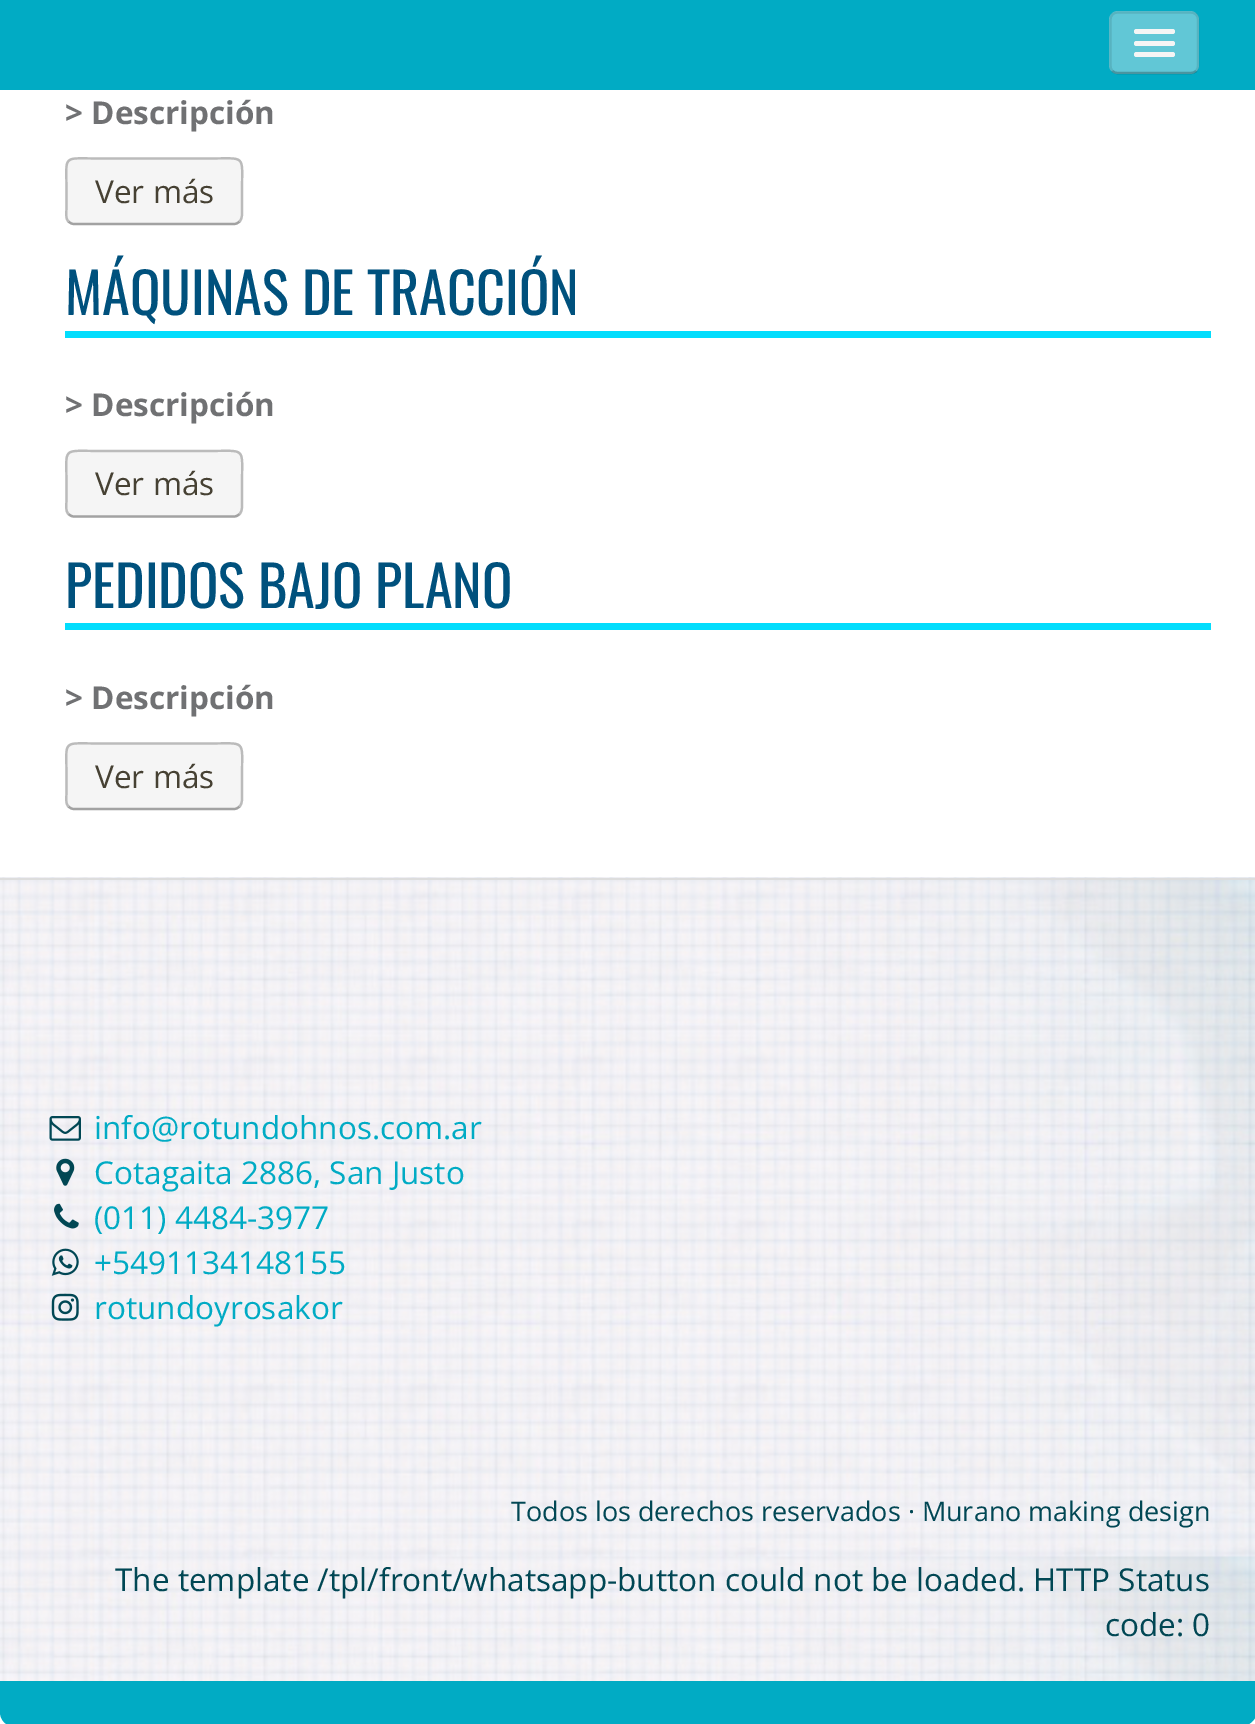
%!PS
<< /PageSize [1255 1724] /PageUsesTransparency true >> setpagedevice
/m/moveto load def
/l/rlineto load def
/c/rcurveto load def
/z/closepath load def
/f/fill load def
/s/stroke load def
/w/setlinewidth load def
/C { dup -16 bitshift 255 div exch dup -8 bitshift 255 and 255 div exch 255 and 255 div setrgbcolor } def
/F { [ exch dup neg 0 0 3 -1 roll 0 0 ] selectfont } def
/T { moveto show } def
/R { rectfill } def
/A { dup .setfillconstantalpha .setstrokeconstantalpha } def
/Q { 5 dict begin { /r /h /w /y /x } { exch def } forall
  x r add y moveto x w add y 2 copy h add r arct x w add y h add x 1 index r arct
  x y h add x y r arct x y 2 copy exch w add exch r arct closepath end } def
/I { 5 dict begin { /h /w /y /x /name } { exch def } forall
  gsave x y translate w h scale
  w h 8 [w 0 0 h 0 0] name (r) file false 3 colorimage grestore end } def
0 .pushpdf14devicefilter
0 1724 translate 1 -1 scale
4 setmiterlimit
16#FFFFFF C
0 0 1255 1724 R
16#01ABC4 C
0 0 1255 90 R
16#61C7D6 C
1109 11 90 63 9 Q f
0.25 A
16#000000 C
2.2 w
1196 71 m -1.5 1.5 -3.5 2 -6 2 c -72 0 l -2 0 -4 -.5 -5.5 -2 c s
0.1 A
1112.5 71 m -1.5 -1.5 -2 -3.5 -2 -6 c 0 -44.5 l 0 -2.5 .5 -4.5 2 -6 c 1.5 -1.5 3.5 -2 5.5 -2 c 72 0 l 2.5 0 4.5 .5 6 2 c 1.5 1.5 2 3.5 2 5.5 c 0 45 l 0 2.5 -.5 4.5 -2 6 c s
1 A
16#F5F5F5 C
1134 29 41 5 2.5 Q f
1134 41 41 5 2.5 Q f
1134 52 41 5 2.5 Q f
/OpenSans-Bold 31.5 F
16#707173 C
(> Descripción) 65 124 T
16#F5F5F5 C
65 158 178 67 9 Q f
16#A2A2A2 C
239.5 221.5 m -1.5 1.5 -3.5 2.5 -5.5 2.5 c -160 0 l -2 0 -4 -1 -5.5 -2.5 c s
16#BBBBBB C
68.5 221.5 m -3.5 -3.5 -2 -9.5 -2 -13.5 c 0 -17 l 0 -37.5 -5.5 -32.5 34.5 -32.5 c 106.5 0 l 39.5 0 34.5 -5 34.5 32.5 c 0 17 l 0 4 1 10 -2.5 13.5 c s
/OpenSans-Regular 31.5 F
16#464133 C
(Ver más) 95 203 T
16#03DDFD C
65 331 1146 7 R
/Oswald-Regular 56.25 F
16#00517D C
(MÁQUINAS DE TRACCIÓN) 65 315 T
/OpenSans-Bold 31.5 F
16#707173 C
(> Descripción) 65 416 T
16#F5F5F5 C
65 450 178 68 9 Q f
16#A2A2A2 C
239.5 514 m -1.5 1.5 -3.5 2.5 -5.5 2.5 c -160 0 l -2 0 -4 -1 -5.5 -2.5 c s
16#BBBBBB C
68.5 514 m -3.5 -3.5 -2 -9.5 -2 -14 c 0 -16 l 0 -38 -5.5 -33 34.5 -33 c 106.5 0 l 39.5 0 34.5 -5 34.5 33 c 0 16 l 0 4.5 1 10.5 -2.5 14 c s
/OpenSans-Regular 31.5 F
16#464133 C
(Ver más) 95 495 T
16#03DDFD C
65 623 1146 7 R
/Oswald-Regular 56.25 F
16#00517D C
(PEDIDOS BAJO PLANO) 65 608 T
/OpenSans-Bold 31.5 F
16#707173 C
(> Descripción) 65 709 T
16#F5F5F5 C
65 743 178 67 9 Q f
16#A2A2A2 C
239.5 806.5 m -1.5 1.5 -3.5 2.5 -5.5 2.5 c -160 0 l -2 0 -4 -1 -5.5 -2.5 c s
16#BBBBBB C
68.5 806.5 m -3.5 -3.5 -2 -9.5 -2 -13.5 c 0 -17 l 0 -37.5 -5.5 -32.5 34.5 -32.5 c 106.5 0 l 39.5 0 34.5 -5 34.5 32.5 c 0 17 l 0 4 1 10 -2.5 13.5 c s
/OpenSans-Regular 31.5 F
16#464133 C
(Ver más) 95 788 T
(1.rgb) 0 877 1255 847 I
16#DDDDDD C
0 878 1255 2 R
16#01ABC4 C
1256 1681 m 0 35 l -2 5 -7 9 -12 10 c -1233 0 l -6 -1 -11 -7 -11 -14 c 0 -31 l z f
(2.rgb) 49 1116 32 25 I
(info@rotundohnos.com.ar) 94 1139 T
(3.rgb) 56 1158 19 28 I
(Cotagaita 2886, San Justo) 94 1184 T
(4.rgb) 54 1203 25 26 I
(\(011\) 4484-3977) 94 1229 T
(5.rgb) 51 1248 28 28 I
(+5491134148155) 94 1274 T
(6.rgb) 51 1293 28 28 I
(rotundoyrosakor) 94 1319 T
/OpenSans-Regular 27 F
16#014754 C
(Todos los derechos reservados · Murano making design) 511 1521 T
/OpenSans-Regular 31.5 F
(The template /tpl/front/whatsapp-button could not be loaded. HTTP Status) 115 1591 T
(code: 0) 1105 1636 T
.poppdf14devicefilter showpage
